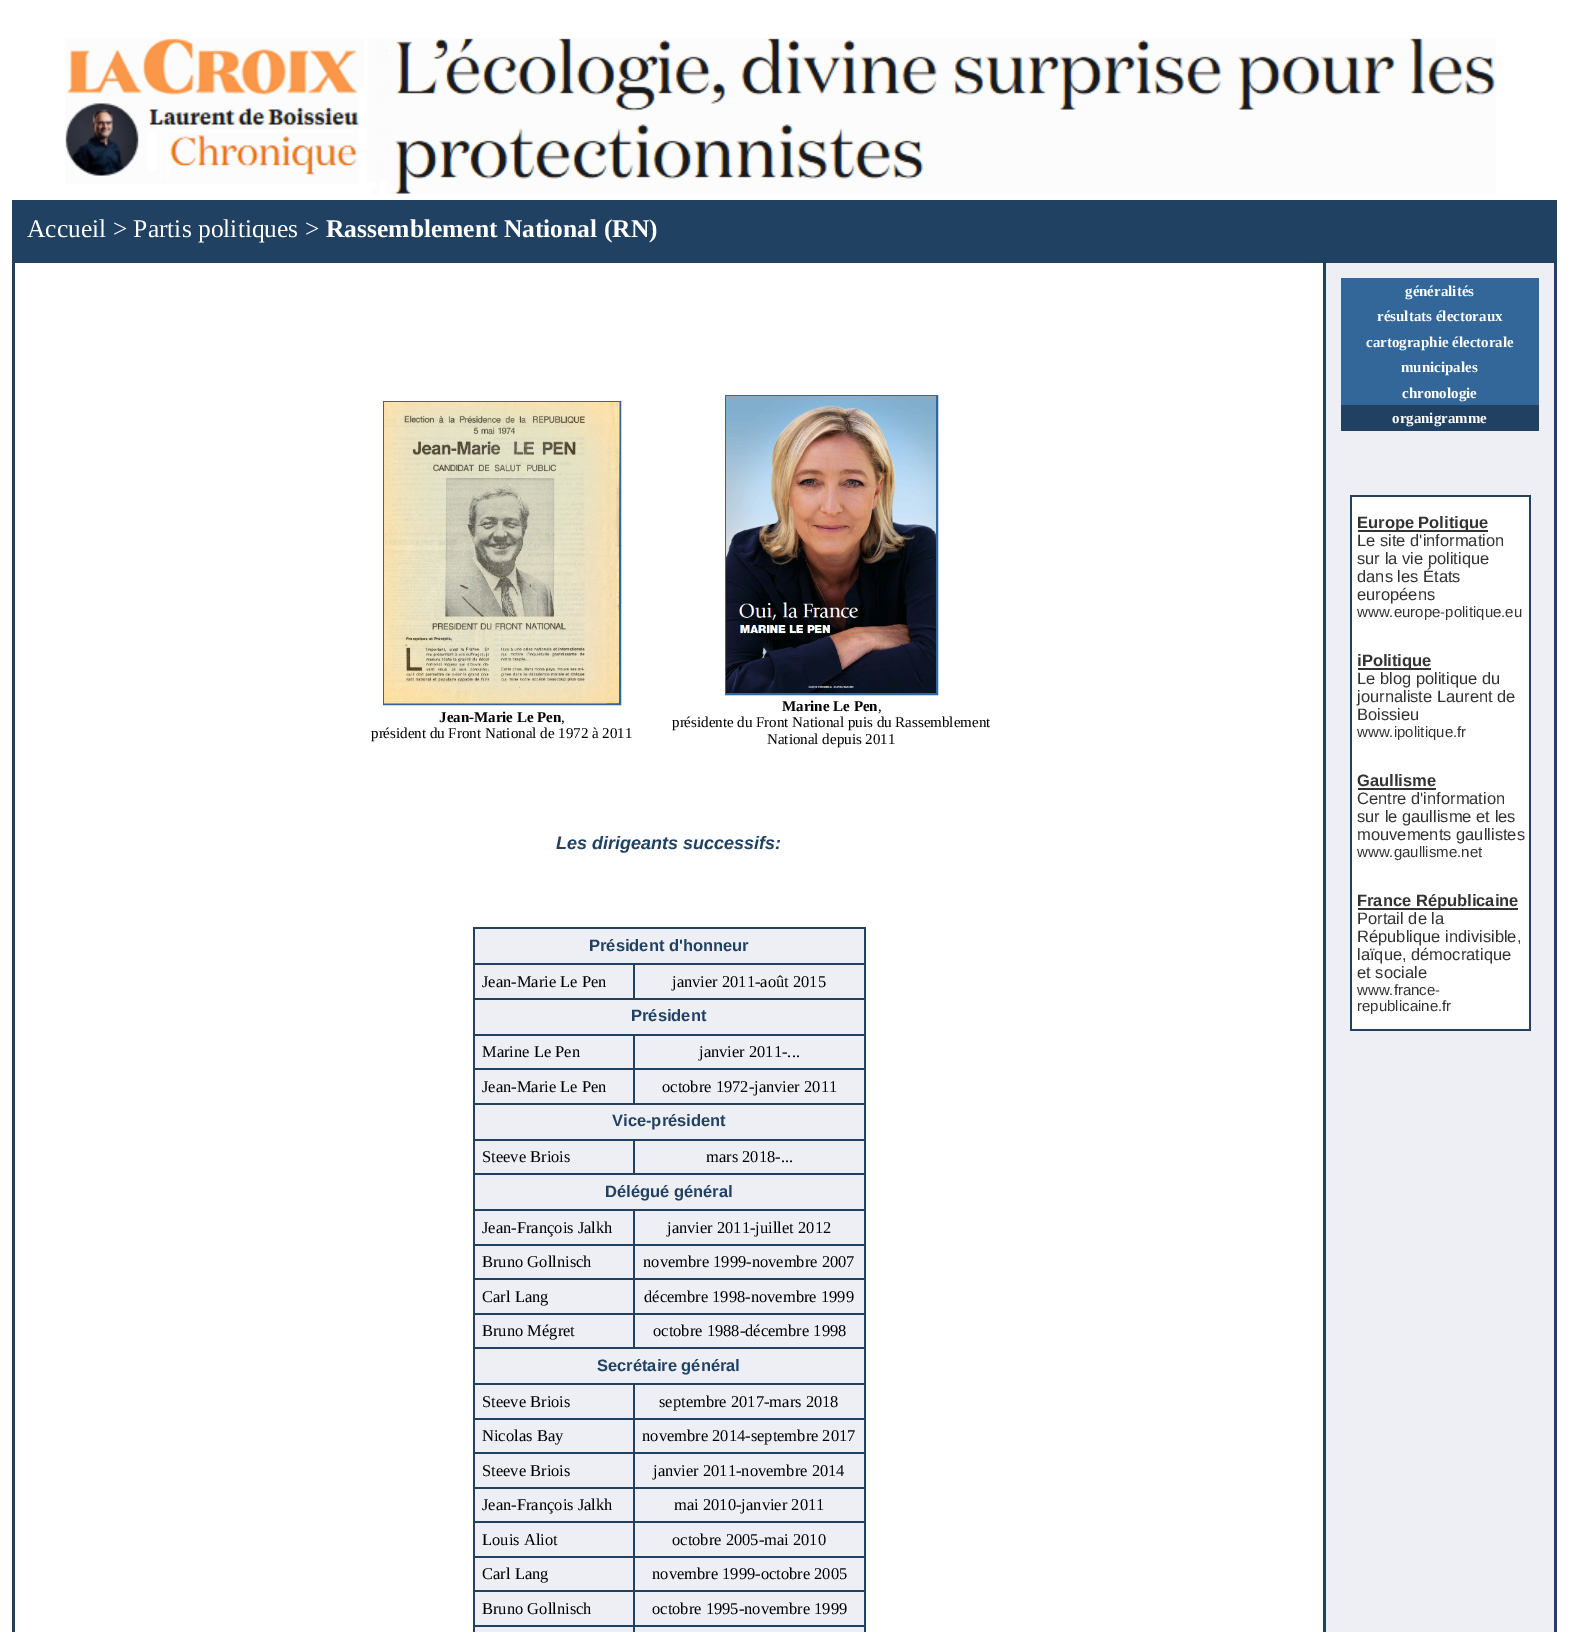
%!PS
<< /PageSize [1569 1632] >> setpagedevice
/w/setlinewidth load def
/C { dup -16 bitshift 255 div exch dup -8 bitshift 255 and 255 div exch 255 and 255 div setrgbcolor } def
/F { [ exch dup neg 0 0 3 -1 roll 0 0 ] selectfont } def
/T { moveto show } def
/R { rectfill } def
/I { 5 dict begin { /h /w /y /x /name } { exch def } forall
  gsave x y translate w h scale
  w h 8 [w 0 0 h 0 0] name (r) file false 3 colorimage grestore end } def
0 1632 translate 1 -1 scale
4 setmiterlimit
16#FFFFFF C
0 0 1569 1632 R
(1.rgb) 65 38 1431 156 I
16#214163 C
12 200 1545 63 R
/LiberationSerif-Regular 25.5 F
16#FFFFFF C
(Accueil > Partis politiques >) 27 237 T
/LiberationSerif-Bold 25.5 F
(Rassemblement National \(RN\)) 326 237 T
16#214163 C
1554 260 3 1372 R
12 260 3 1372 R
16#336699 C
2 w
384 402 236 302 rectstroke
(2.rgb) 384 402 236 302 I
/LiberationSerif-Bold 15 F
16#000000 C
(Jean-Marie Le Pen) 439 722 T
/LiberationSerif-Regular 15 F
(,) 561 722 T
(président du Front National de 1972 à 2011) 371 738 T
16#336699 C
726 396 211 298 rectstroke
(3.rgb) 726 396 210 297 I
/LiberationSerif-Bold 15 F
16#000000 C
(Marine Le Pen) 782 711 T
/LiberationSerif-Regular 15 F
(,) 878 711 T
(présidente du Front National puis du Rassemblement) 672 727 T
(National depuis 2011) 767 744 T
/LiberationSans-BoldItalic 18 F
16#214163 C
(Les dirigeants successifs:) 556 849 T
16#EDEFF4 C
475 929 389 703 R
16#214163 C
473 927 393 2 R
864 927 2 705 R
473 927 2 705 R
/LiberationSans-Bold 16.5 F
(Président d'honneur) 589 951 T
633 963 233 2 R
473 998 393 2 R
633 963 2 36 R
473 963 162 2 R
/LiberationSerif-Regular 16.5 F
16#000000 C
(Jean-Marie Le Pen) 482 987 T
(janvier 2011-août 2015) 672 987 T
/LiberationSans-Bold 16.5 F
16#214163 C
(Président) 631 1021 T
633 1034 233 2 R
633 1068 233 2 R
473 1103 393 2 R
633 1068 2 36 R
473 1068 162 2 R
633 1034 2 36 R
473 1034 162 2 R
/LiberationSerif-Regular 16.5 F
16#000000 C
(Marine Le Pen) 482 1057 T
(janvier 2011-...) 699 1057 T
(Jean-Marie Le Pen) 482 1092 T
(octobre 1972-janvier 2011) 662 1092 T
/LiberationSans-Bold 16.5 F
16#214163 C
(Vice-président) 612 1126 T
633 1139 233 2 R
473 1173 393 2 R
633 1139 2 36 R
473 1139 162 2 R
/LiberationSerif-Regular 16.5 F
16#000000 C
(Steeve Briois) 482 1162 T
(mars 2018-...) 706 1162 T
/LiberationSans-Bold 16.5 F
16#214163 C
(Délégué général) 605 1197 T
633 1209 233 2 R
633 1244 233 2 R
633 1278 233 2 R
633 1313 233 2 R
473 1347 393 2 R
633 1313 2 36 R
473 1313 162 2 R
633 1278 2 36 R
473 1278 162 2 R
633 1244 2 36 R
473 1244 162 2 R
633 1209 2 36 R
473 1209 162 2 R
/LiberationSerif-Regular 16.5 F
16#000000 C
(Jean-François Jalkh) 482 1233 T
(janvier 2011-juillet 2012) 667 1233 T
(Bruno Gollnisch) 482 1267 T
(novembre 1999-novembre 2007) 643 1267 T
(Carl Lang) 482 1302 T
(décembre 1998-novembre 1999) 644 1302 T
(Bruno Mégret) 482 1336 T
(octobre 1988-décembre 1998) 653 1336 T
/LiberationSans-Bold 16.5 F
16#214163 C
(Secrétaire général) 597 1371 T
633 1383 233 2 R
633 1418 233 2 R
633 1452 233 2 R
633 1487 233 2 R
633 1521 233 2 R
633 1556 233 2 R
633 1590 233 2 R
633 1625 233 2 R
633 1625 2 7 R
473 1625 162 2 R
633 1590 2 36 R
473 1590 162 2 R
633 1556 2 36 R
473 1556 162 2 R
633 1521 2 36 R
473 1521 162 2 R
633 1487 2 36 R
473 1487 162 2 R
633 1452 2 36 R
473 1452 162 2 R
633 1418 2 36 R
473 1418 162 2 R
633 1383 2 36 R
473 1383 162 2 R
/LiberationSerif-Regular 16.5 F
16#000000 C
(Steeve Briois) 482 1407 T
(septembre 2017-mars 2018) 659 1407 T
(Nicolas Bay) 482 1441 T
(novembre 2014-septembre 2017) 642 1441 T
(Steeve Briois) 482 1476 T
(janvier 2011-novembre 2014) 653 1476 T
(Jean-François Jalkh) 482 1510 T
(mai 2010-janvier 2011) 674 1510 T
(Louis Aliot) 482 1545 T
(octobre 2005-mai 2010) 672 1545 T
(Carl Lang) 482 1579 T
(novembre 1999-octobre 2005) 652 1579 T
(Bruno Gollnisch) 482 1614 T
(octobre 1995-novembre 1999) 652 1614 T
16#EDEFF4 C
1326 263 228 1369 R
16#214163 C
1323 260 3 1372 R
16#336699 C
1341 278 198 127 R
/LiberationSerif-Bold 15 F
16#FFFFFF C
(généralités) 1405 296 T
(résultats électoraux) 1377 321 T
(cartographie électorale) 1366 347 T
(municipales) 1401 372 T
(chronologie) 1402 398 T
16#214163 C
1341 405 198 26 R
16#FFFFFF C
(organigramme) 1392 423 T
1352 497 177 532 R
16#214163 C
1350 495 180 2 R
1529 495 2 536 R
1350 1029 180 2 R
1350 495 2 536 R
16#333333 C
1358 530 130 2 R
/LiberationSans-Bold 16.5 F
(Europe Politique) 1357 528 T
/LiberationSans-Regular 16.5 F
(Le site d'information) 1357 546 T
(sur la vie politique) 1357 564 T
(dans les États) 1357 582 T
(européens) 1357 600 T
/LiberationSans-Regular 15 F
(www.europe-politique.eu) 1357 617 T
1358 668 73 2 R
/LiberationSans-Bold 16.5 F
(iPolitique) 1357 666 T
/LiberationSans-Regular 16.5 F
(Le blog politique du) 1357 684 T
(journaliste Laurent de) 1357 702 T
(Boissieu) 1357 720 T
/LiberationSans-Regular 15 F
(www.ipolitique.fr) 1357 737 T
/LiberationSans-Bold 16.5 F
(Gaullisme) 1357 786 T
1358 788 78 2 R
/LiberationSans-Regular 16.5 F
(Centre d'information) 1357 804 T
(sur le gaullisme et les) 1357 822 T
(mouvements gaullistes) 1357 840 T
/LiberationSans-Regular 15 F
(www.gaullisme.net) 1357 857 T
1358 908 160 2 R
/LiberationSans-Bold 16.5 F
(France Républicaine) 1357 906 T
/LiberationSans-Regular 16.5 F
(Portail de la) 1357 924 T
(République indivisible,) 1357 942 T
(laïque, démocratique) 1357 960 T
(et sociale) 1357 978 T
/LiberationSans-Regular 15 F
(www.france-) 1357 995 T
(republicaine.fr) 1357 1011 T
showpage
